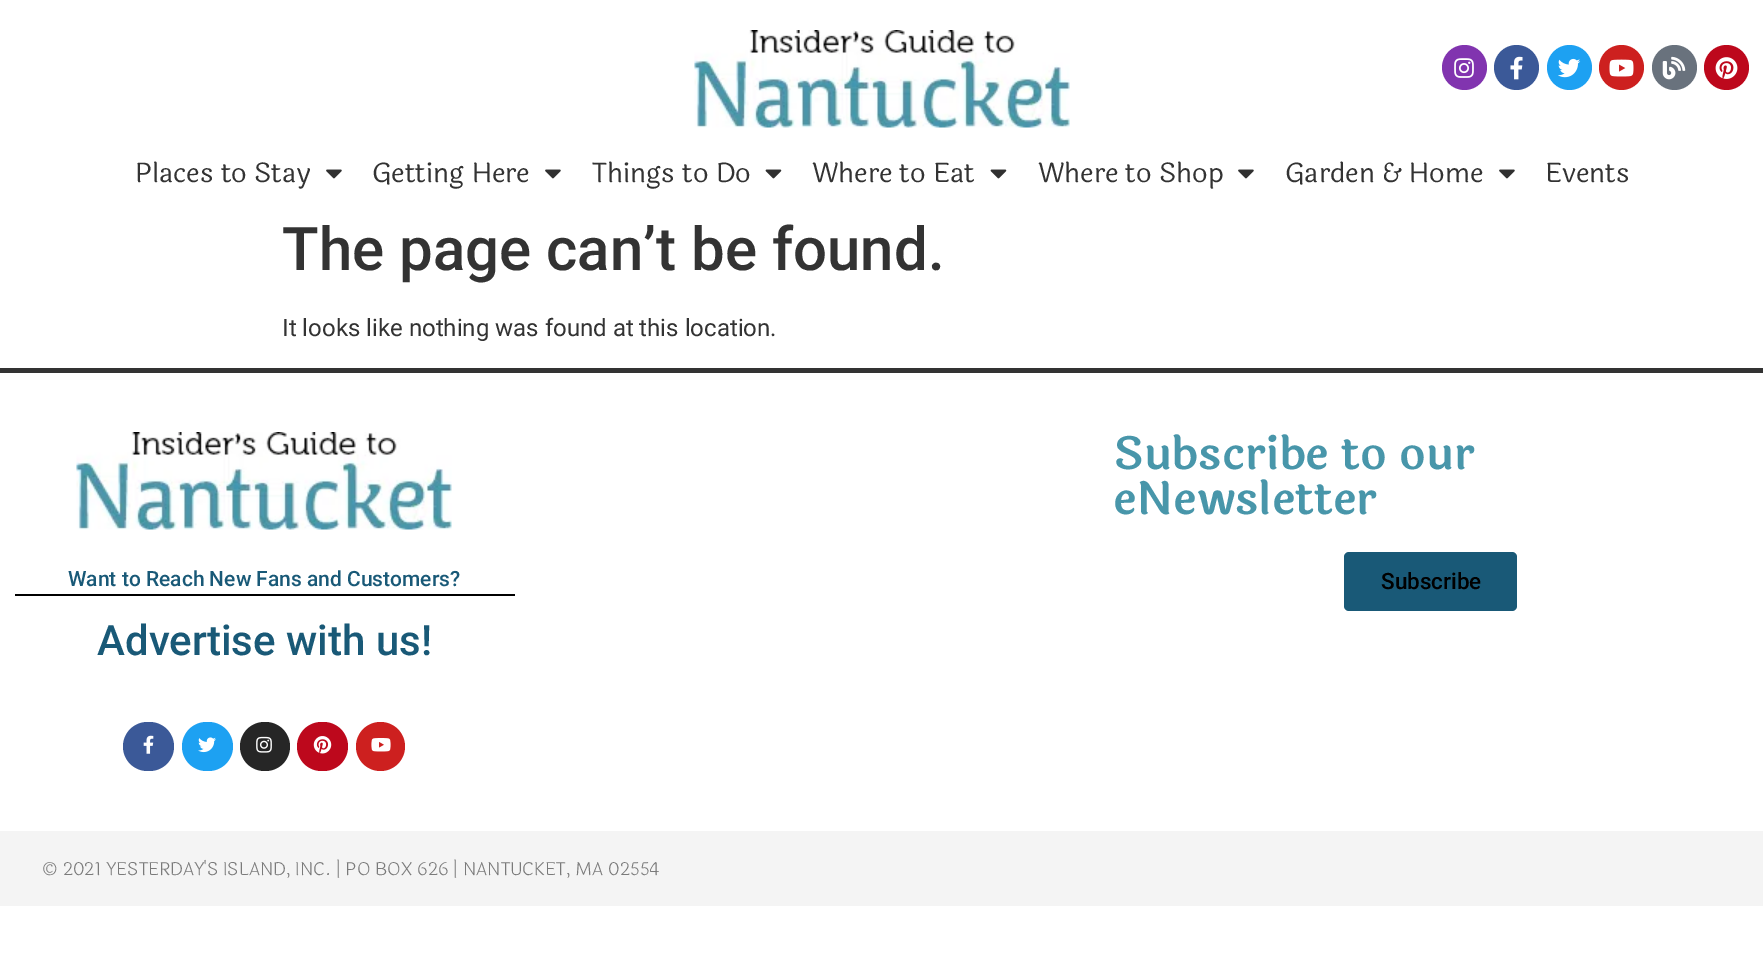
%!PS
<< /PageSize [1763 973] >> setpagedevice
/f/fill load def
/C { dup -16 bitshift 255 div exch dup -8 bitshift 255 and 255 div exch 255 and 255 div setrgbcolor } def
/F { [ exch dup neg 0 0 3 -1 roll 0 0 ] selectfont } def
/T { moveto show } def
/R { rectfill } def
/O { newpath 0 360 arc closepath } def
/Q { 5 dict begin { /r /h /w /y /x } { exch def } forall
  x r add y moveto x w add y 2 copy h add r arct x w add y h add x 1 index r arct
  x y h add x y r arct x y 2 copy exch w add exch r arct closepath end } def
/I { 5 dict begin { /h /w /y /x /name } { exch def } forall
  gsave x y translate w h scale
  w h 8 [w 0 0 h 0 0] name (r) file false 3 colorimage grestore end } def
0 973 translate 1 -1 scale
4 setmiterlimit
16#FFFFFF C
0 0 1763 973 R
(1.rgb) 694 30 376 98 I
16#8134AF C
1464.5 67.5 22.5 O f
(2.rgb) 1454 58 20 20 I
16#3B5998 C
1516.5 67.5 22.5 O f
(3.rgb) 1510 56 13 24 I
16#1DA1F2 C
1569.5 67.5 22.5 O f
(4.rgb) 1558 58 23 20 I
16#CD201F C
1621.5 67.5 22.5 O f
(5.rgb) 1609 59 25 18 I
16#69727D C
1674.5 67.5 22.5 O f
(6.rgb) 1662 56 24 24 I
16#BD081C C
1726.5 67.5 22.5 O f
(7.rgb) 1715 57 23 22 I
/Laila-Regular 27 F
16#333333 C
(Places to Stay) 135 182 T
(8.rgb) 326 169 16 10 I
(Getting Here) 372 182 T
(8.rgb) 545 169 16 10 I
(Things to Do) 592 182 T
(9.rgb) 765 169 17 10 I
(Where to Eat) 812 182 T
(9.rgb) 990 169 17 10 I
(Where to Shop) 1038 182 T
(8.rgb) 1238 169 16 10 I
(Garden & Home) 1285 182 T
(8.rgb) 1499 169 16 10 I
(Events) 1545 182 T
/Roboto-Medium 60 F
(The page can’t be found.) 282 270 T
/Roboto-Regular 24 F
(It looks like nothing was found at this location.) 282 336 T
0 368 1763 5 R
/Laila-SemiBold 45 F
16#4896AA C
(Subscribe to our) 1113 469 T
(eNewsletter) 1113 514 T
16#195977 C
1344 552 173 59 5 Q f
/Roboto-Medium 22.5 F
16#000000 C
(Subscribe) 1381 589 T
(10.rgb) 76 432 376 98 I
/Roboto-Medium 21 F
16#195977 C
(Want to Reach New Fans and Customers?) 68 586 T
16#000000 C
15 594 500 2 R
/Roboto-Medium 42 F
16#195977 C
(Advertise with us!) 97 655 T
16#3B5998 C
123 722 51 49 24.5 Q f
(11.rgb) 143 735 11 19 I
16#1DA1F2 C
182 722 51 49 24.5 Q f
(12.rgb) 198 737 18 16 I
16#262626 C
240 722 50 49 24.5 Q f
(13.rgb) 256 736 16 17 I
16#BD081C C
297 722 51 49 24.5 Q f
(14.rgb) 313 736 19 18 I
16#CD201F C
380.5 746.5 24.5 O f
(15.rgb) 371 738 20 14 I
16#F4F4F4 C
0 831 1763 75 R
/Laila-Light 18 F
16#7A7A7A C
(© 2021 YESTERDAY'S ISLAND, INC. | PO BOX 626 | NANTUCKET, MA 02554) 42 875 T
showpage
